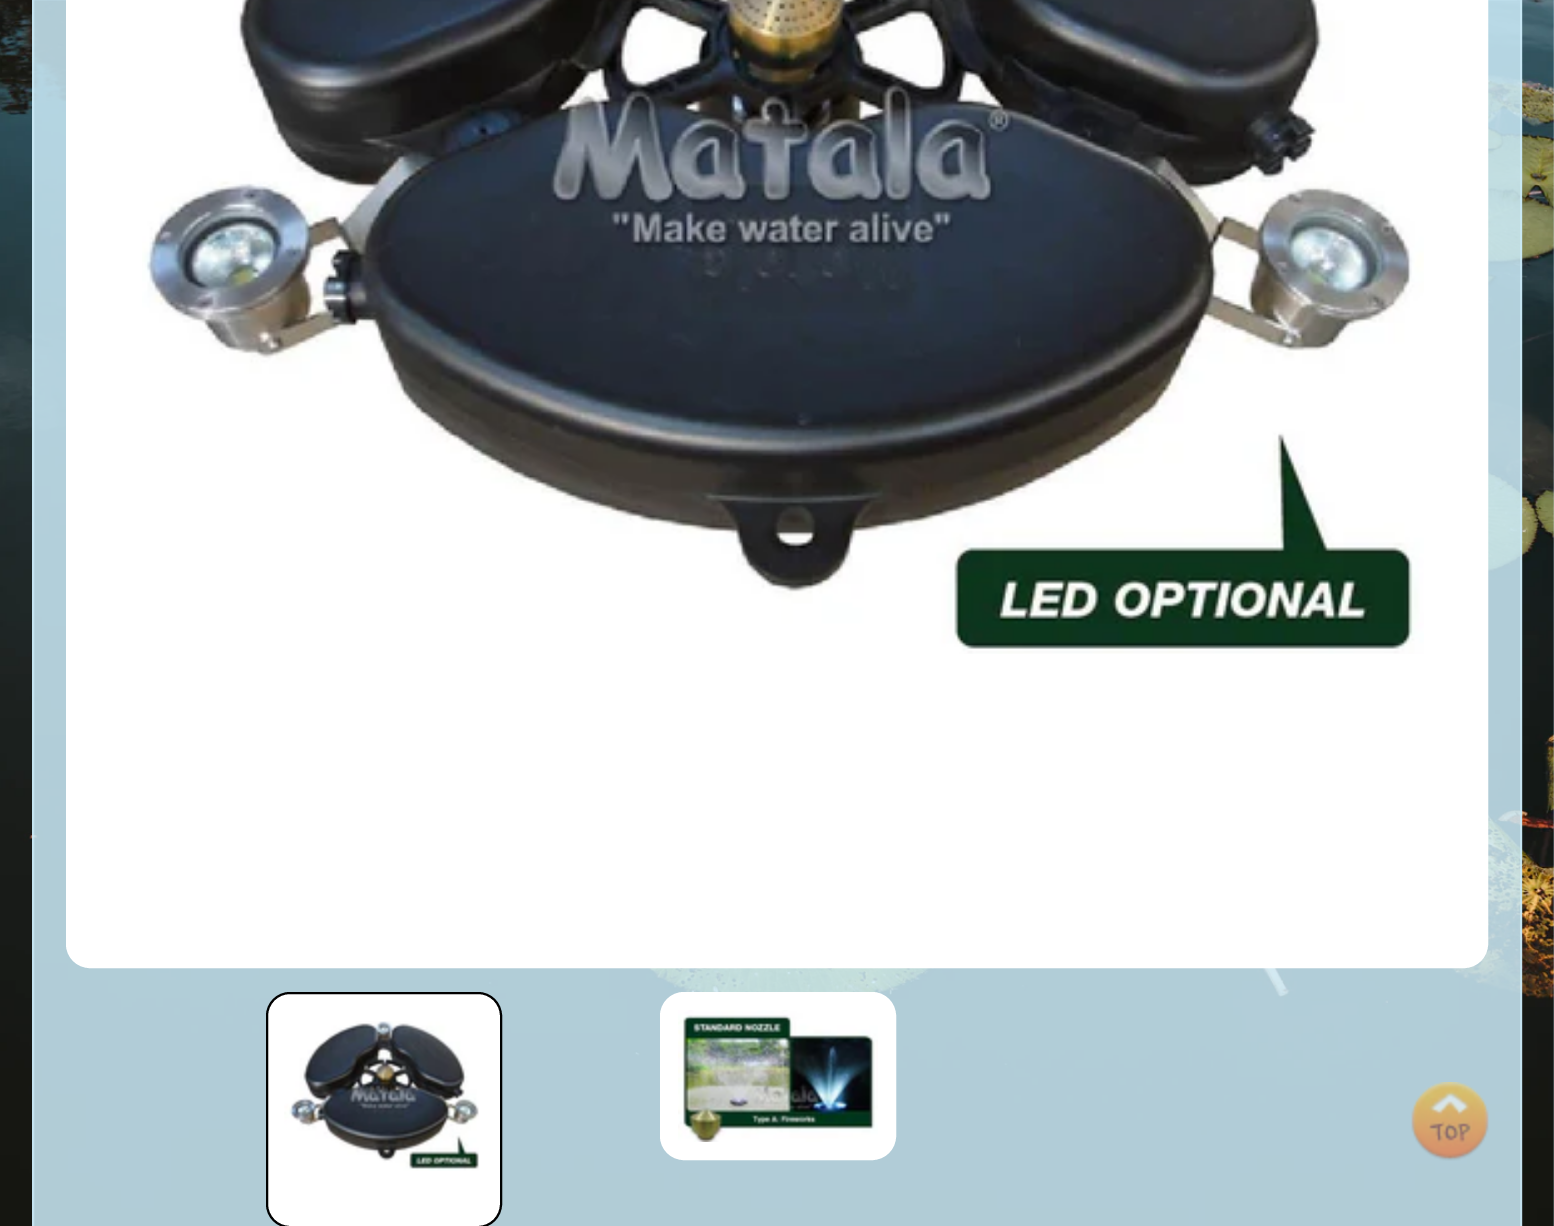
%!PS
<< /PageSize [1554 1226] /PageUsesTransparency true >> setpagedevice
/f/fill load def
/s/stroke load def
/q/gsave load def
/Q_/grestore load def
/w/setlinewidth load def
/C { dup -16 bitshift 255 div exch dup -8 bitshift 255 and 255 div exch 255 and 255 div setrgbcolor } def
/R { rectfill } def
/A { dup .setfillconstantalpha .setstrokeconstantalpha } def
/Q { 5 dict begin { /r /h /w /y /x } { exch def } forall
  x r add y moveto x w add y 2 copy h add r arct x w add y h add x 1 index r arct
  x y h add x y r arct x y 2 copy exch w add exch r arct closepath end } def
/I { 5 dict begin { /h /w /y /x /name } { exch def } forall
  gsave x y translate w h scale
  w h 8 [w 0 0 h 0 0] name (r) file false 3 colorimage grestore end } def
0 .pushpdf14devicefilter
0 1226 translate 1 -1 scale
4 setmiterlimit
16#FFFFFF C
0 0 1554 1226 R
(1.rgb) 0 0 1554 1226 I
0.7 A
16#CCECF9 C
2 w
33 -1 1488 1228 rectstroke
1 A
16#FFFFFF C
67 -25 1420 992 23 Q q f Q_
s
(2.rgb) 142 0 1282 654 I
267 993 234 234 23 Q q f Q_
16#000000 C
s
(3.rgb) 284 1021 195 150 I
16#FFFFFF C
661 993 234 166 23 Q q f Q_
s
(4.rgb) 678 1010 200 132 I
(5.rgb) 1411 1082 78 79 I
.poppdf14devicefilter showpage
